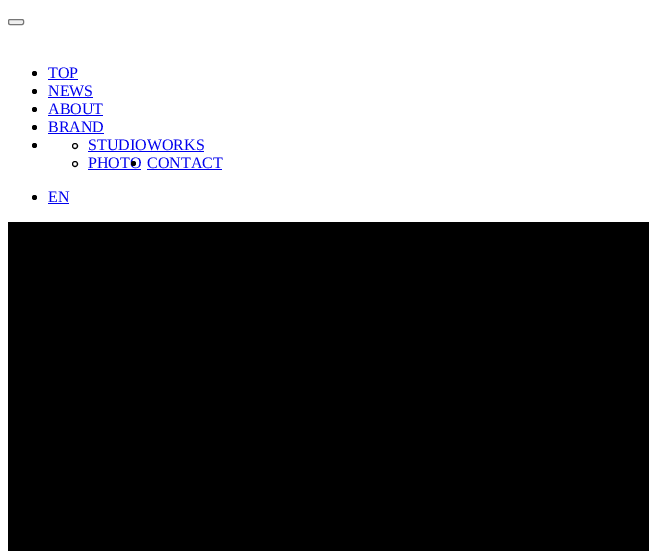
%!PS
<< /PageSize [657 551] >> setpagedevice
/f/fill load def
/s/stroke load def
/q/gsave load def
/Q_/grestore load def
/C { dup -16 bitshift 255 div exch dup -8 bitshift 255 and 255 div exch 255 and 255 div setrgbcolor } def
/F { [ exch dup neg 0 0 3 -1 roll 0 0 ] selectfont } def
/T { moveto show } def
/R { rectfill } def
/O { newpath 0 360 arc closepath } def
/Q { 5 dict begin { /r /h /w /y /x } { exch def } forall
  x r add y moveto x w add y 2 copy h add r arct x w add y h add x 1 index r arct
  x y h add x y r arct x y 2 copy exch w add exch r arct closepath end } def
0 551 translate 1 -1 scale
4 setmiterlimit
16#FFFFFF C
0 0 657 551 R
16#EFEFEF C
8.5 19.5 15 5 1.5 Q q f Q_
16#767676 C
s
16#000000 C
34.5 73.5 2.5 O f
/LiberationSerif-Regular 16 F
16#0000EE C
(TOP) 48 78 T
48 79 30 1 R
16#000000 C
34.5 91.5 2.5 O f
16#0000EE C
(NEWS) 48 96 T
48 97 45 1 R
16#000000 C
34.5 109.5 2.5 O f
16#0000EE C
(ABOUT) 48 114 T
48 115 55 1 R
16#000000 C
34.5 127.5 2.5 O f
16#0000EE C
(BRAND) 48 132 T
48 133 56 1 R
16#000000 C
34.5 145.5 2.5 O f
75 146 2.5 O s
16#0000EE C
(STUDIOWORKS) 88 150 T
88 151 116 1 R
16#000000 C
75 164 2.5 O s
16#0000EE C
(PHOTO) 88 168 T
88 169 53 1 R
16#000000 C
133.5 163.5 2.5 O f
16#0000EE C
(CONTACT) 147 168 T
147 169 75 1 R
16#000000 C
34.5 197.5 2.5 O f
16#0000EE C
(EN) 48 202 T
48 203 21 1 R
16#000000 C
8 222 641 329 R
showpage
